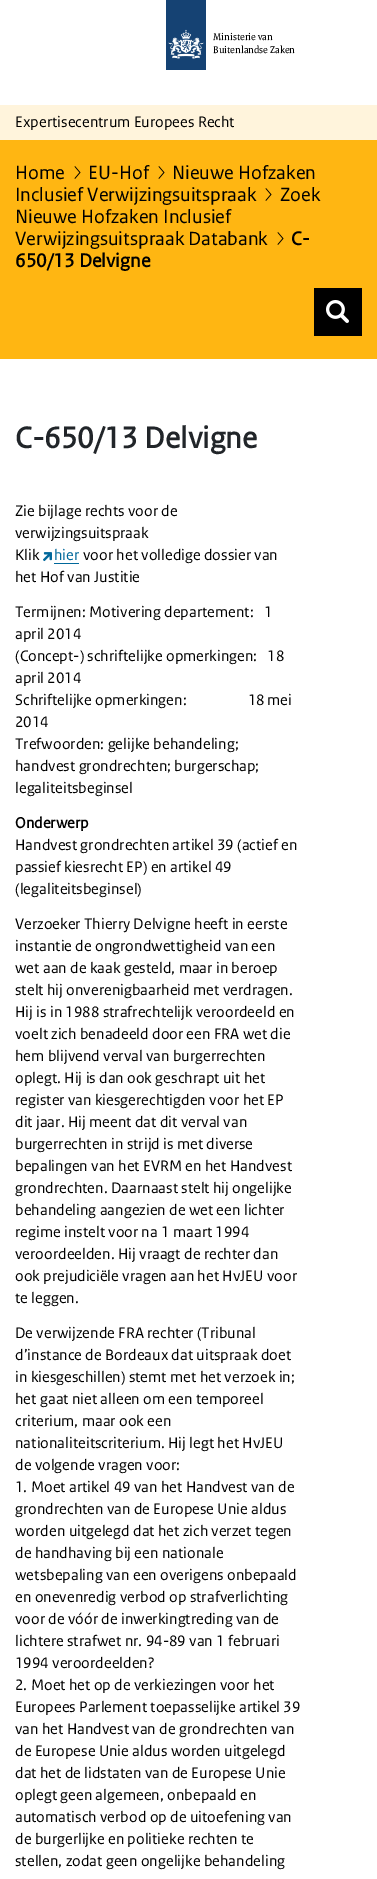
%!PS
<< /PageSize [377 1879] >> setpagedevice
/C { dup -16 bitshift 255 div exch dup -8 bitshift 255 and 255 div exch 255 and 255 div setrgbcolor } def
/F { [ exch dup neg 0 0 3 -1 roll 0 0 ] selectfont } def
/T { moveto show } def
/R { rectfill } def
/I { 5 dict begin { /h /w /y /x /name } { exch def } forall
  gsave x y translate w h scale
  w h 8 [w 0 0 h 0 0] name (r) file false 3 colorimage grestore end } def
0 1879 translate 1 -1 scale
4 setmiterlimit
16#FFFFFF C
0 0 377 1879 R
(1.rgb) 166 0 40 70 I
/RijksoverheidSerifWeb-Regular 10.5 F
16#000000 C
(Ministerie van) 213 40 T
(Buitenlandse Zaken) 213 53 T
16#FFF4DC C
0 105 377 35 R
/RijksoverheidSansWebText-Regular 16 F
16#000000 C
(Expertisecentrum Europees Recht) 15 127 T
16#FFB612 C
0 140 377 219 R
/RijksoverheidSansWebText-Regular 20 F
16#000000 C
(Home) 15 179 T
(2.rgb) 74 166 7 13 I
(EU-Hof) 88 179 T
(2.rgb) 158 166 7 13 I
(Nieuwe Hofzaken) 172 179 T
(Inclusief Verwijzingsuitspraak) 15 201 T
(2.rgb) 265 188 7 13 I
(Zoek) 280 201 T
(Nieuwe Hofzaken Inclusief) 15 223 T
(Verwijzingsuitspraak Databank) 15 245 T
(2.rgb) 277 232 7 13 I
/RijksoverheidSansWebText-Bold 20 F
(C-) 291 245 T
(650/13 Delvigne) 15 267 T
314 288 48 48 R
(3.rgb) 326 300 23 23 I
/RijksoverheidSansWebText-Bold 31.5 F
16#212529 C
(C-650/13 Delvigne) 15 448 T
/RijksoverheidSansWebText-Regular 16 F
16#000000 C
(Zie bijlage rechts voor de) 15 516 T
(verwijzingsuitspraak) 15 538 T
(Klik) 15 560 T
(4.rgb) 43 552 9 10 I
16#01689B C
(hier) 54 560 T
54 563 25 1 R
16#000000 C
(voor het volledige dossier van) 83 560 T
(het Hof van Justitie) 15 582 T
(Termijnen: Motivering departement:   1) 15 617 T
(april 2014) 15 639 T
(\(Concept-\) schriftelijke opmerkingen:   18) 15 661 T
(april 2014) 15 683 T
(Schriftelijke opmerkingen:) 15 705 T
(18) 248 705 T
(mei) 267 705 T
(2014) 15 727 T
(Trefwoorden: gelijke behandeling;) 15 749 T
(handvest grondrechten; burgerschap;) 15 771 T
(legaliteitsbeginsel) 15 793 T
/RijksoverheidSansWebText-Bold 16 F
(Onderwerp) 15 828 T
/RijksoverheidSansWebText-Regular 16 F
(Handvest grondrechten artikel 39 \(actief en) 15 850 T
(passief kiesrecht EP\) en artikel 49) 15 872 T
(\(legaliteitsbeginsel\)) 15 894 T
(Verzoeker Thierry Delvigne heeft in eerste) 15 929 T
(instantie de ongrondwettigheid van een) 15 951 T
(wet aan de kaak gesteld, maar in beroep) 15 973 T
(stelt hij onverenigbaarheid met verdragen.) 15 995 T
(Hij is in 1988 strafrechtelijk veroordeeld en) 15 1017 T
(voelt zich benadeeld door een FRA wet die) 15 1039 T
(hem blijvend verval van burgerrechten) 15 1061 T
(oplegt. Hij is dan ook geschrapt uit het) 15 1083 T
(register van kiesgerechtigden voor het EP) 15 1105 T
(dit jaar. Hij meent dat dit verval van) 15 1127 T
(burgerrechten in strijd is met diverse) 15 1149 T
(bepalingen van het EVRM en het Handvest) 15 1171 T
(grondrechten. Daarnaast stelt hij ongelijke) 15 1193 T
(behandeling aangezien de wet een lichter) 15 1215 T
(regime instelt voor na 1 maart 1994) 15 1237 T
(veroordeelden. Hij vraagt de rechter dan) 15 1259 T
(ook prejudiciële vragen aan het HvJEU voor) 15 1281 T
(te leggen.) 15 1303 T
(De verwijzende FRA rechter \(Tribunal) 15 1338 T
(d’instance de Bordeaux dat uitspraak doet) 15 1360 T
(in kiesgeschillen\) stemt met het verzoek in;) 15 1382 T
(het gaat niet alleen om een temporeel) 15 1404 T
(criterium, maar ook een) 15 1426 T
(nationaliteitscriterium. Hij legt het HvJEU) 15 1448 T
(de volgende vragen voor:) 15 1470 T
(1. Moet artikel 49 van het Handvest van de) 15 1492 T
(grondrechten van de Europese Unie aldus) 15 1514 T
(worden uitgelegd dat het zich verzet tegen) 15 1536 T
(de handhaving bij een nationale) 15 1558 T
(wetsbepaling van een overigens onbepaald) 15 1580 T
(en onevenredig verbod op strafverlichting) 15 1602 T
(voor de vóór de inwerkingtreding van de) 15 1624 T
(lichtere strafwet nr. 94-89 van 1 februari) 15 1646 T
(1994 veroordeelden?) 15 1668 T
(2. Moet het op de verkiezingen voor het) 15 1690 T
(Europees Parlement toepasselijke artikel 39) 15 1712 T
(van het Handvest van de grondrechten van) 15 1734 T
(de Europese Unie aldus worden uitgelegd) 15 1756 T
(dat het de lidstaten van de Europese Unie) 15 1778 T
(oplegt geen algemeen, onbepaald en) 15 1800 T
(automatisch verbod op de uitoefening van) 15 1822 T
(de burgerlijke en politieke rechten te) 15 1844 T
(stellen, zodat geen ongelijke behandeling) 15 1866 T
showpage
